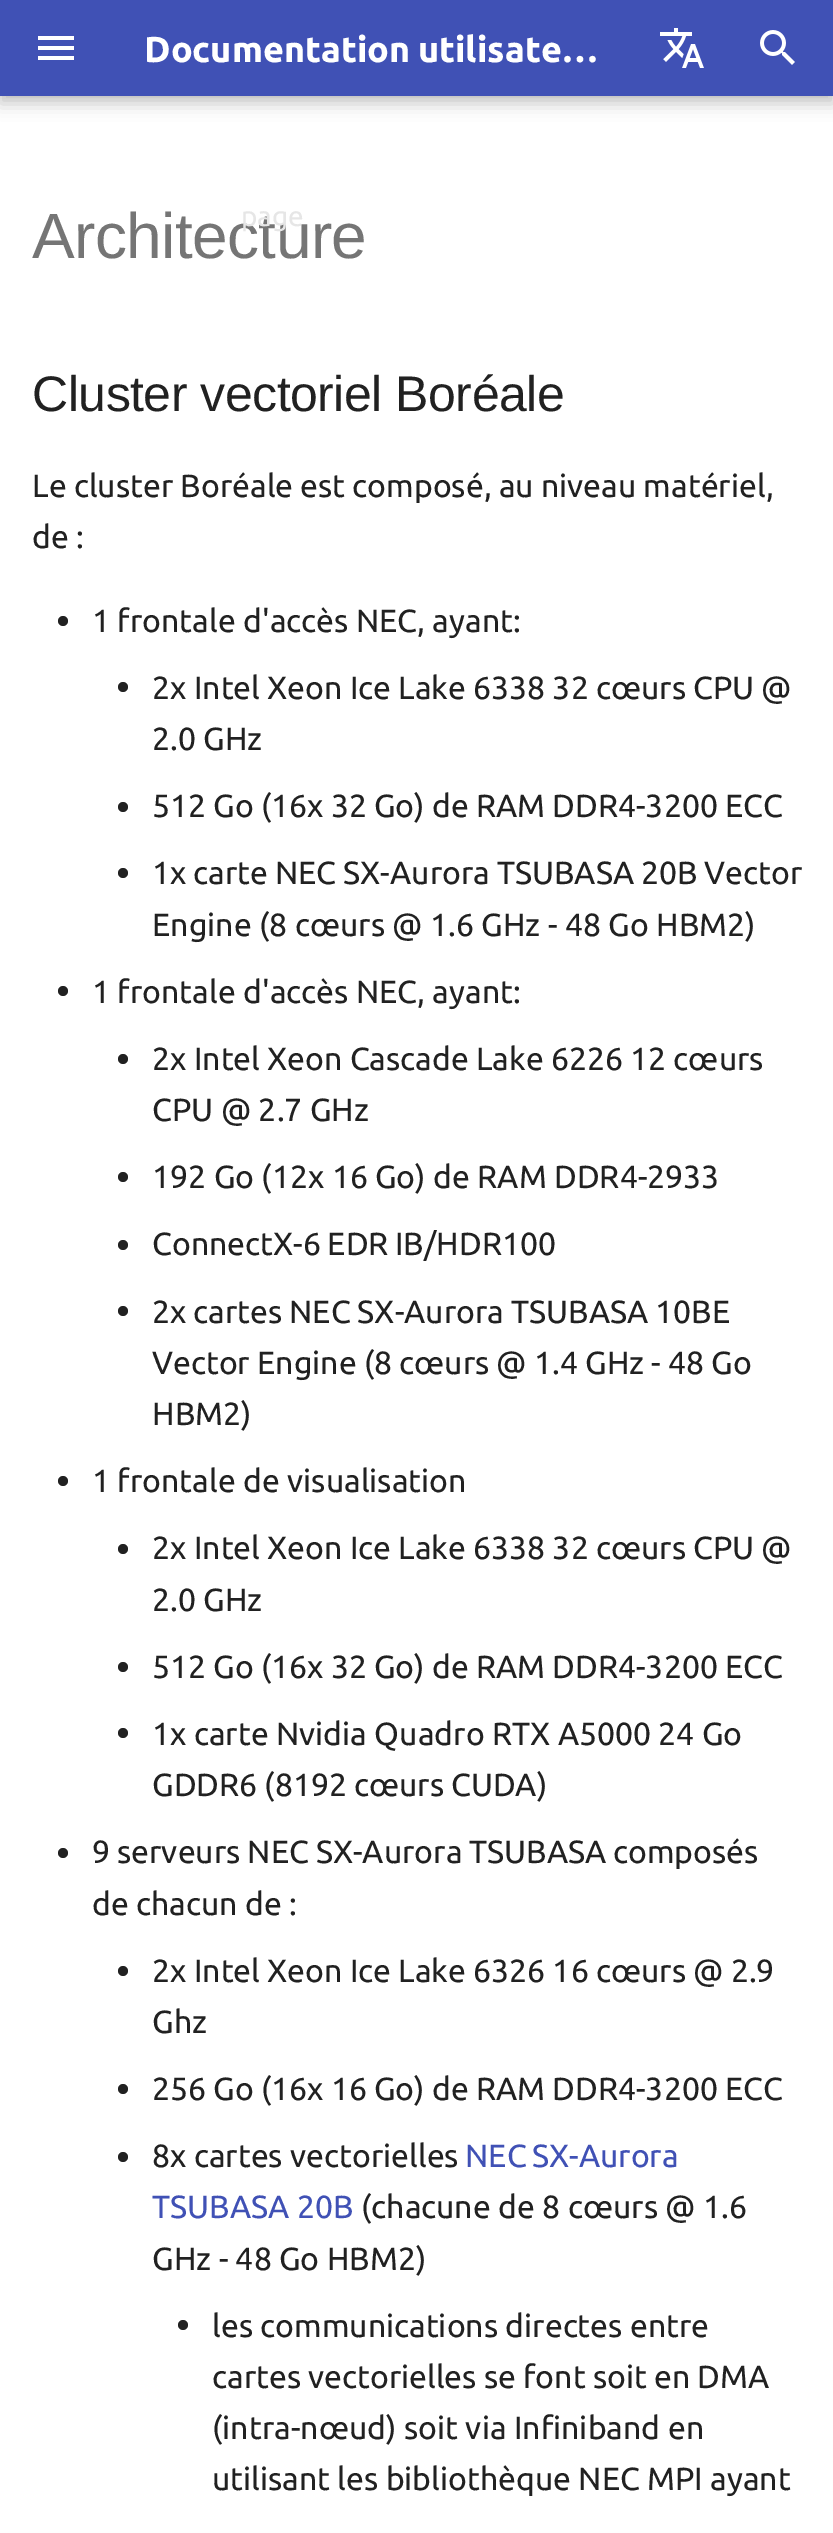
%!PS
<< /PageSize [833 2533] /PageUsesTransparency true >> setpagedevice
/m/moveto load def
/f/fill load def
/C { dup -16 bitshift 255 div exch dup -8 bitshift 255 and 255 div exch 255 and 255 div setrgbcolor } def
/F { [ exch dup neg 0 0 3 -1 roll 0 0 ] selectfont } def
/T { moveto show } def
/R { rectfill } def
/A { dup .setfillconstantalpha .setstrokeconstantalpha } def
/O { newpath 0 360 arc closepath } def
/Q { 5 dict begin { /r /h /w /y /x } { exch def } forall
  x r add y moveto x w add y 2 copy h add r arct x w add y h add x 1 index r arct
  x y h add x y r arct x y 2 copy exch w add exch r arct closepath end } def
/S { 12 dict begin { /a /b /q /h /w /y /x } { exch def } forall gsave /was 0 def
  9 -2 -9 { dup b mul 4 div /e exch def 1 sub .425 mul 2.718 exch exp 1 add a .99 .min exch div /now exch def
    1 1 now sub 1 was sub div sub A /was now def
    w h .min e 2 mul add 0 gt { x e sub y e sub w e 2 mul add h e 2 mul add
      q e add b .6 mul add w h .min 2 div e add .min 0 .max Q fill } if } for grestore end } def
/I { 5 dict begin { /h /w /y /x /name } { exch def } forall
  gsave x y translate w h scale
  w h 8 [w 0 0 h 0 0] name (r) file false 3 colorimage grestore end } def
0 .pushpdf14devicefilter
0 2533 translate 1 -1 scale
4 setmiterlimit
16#FFFFFF C
0 0 833 2533 R
16#000000 C
0 8 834 96 0 8 .2 S
0 0 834 96 0 4 .1 S
16#4051B5 C
0 0 833 96 R
(1.rgb) 38 36 36 24 I
/Ubuntu-Bold 36 F
16#FFFFFF C
144 62 m -1 0 32 (Documentation utilisate…) widthshow
(2.rgb) 660 28 44 40 I
(3.rgb) 760 30 35 35 I
/LiberationSans-Regular 64 F
16#757575 C
32 258 m -.6 0 (Architecture) ashow
/LiberationSans-Regular 50 F
16#212121 C
32 411 m -.5 0 (Cluster vectoriel Boréale) ashow
/Ubuntu-Regular 32 F
32 497 m -.25 0 32 (Le cluster Boréale est composé, au niveau matériel,) widthshow
(de :) 32 548 T
63 621 5 O f
(1 frontale d'accès NEC, ayant:) 92 632 T
123 687 5 O f
152 699 m -.25 0 32 (2x Intel Xeon Ice Lake 6338 32 cœurs CPU @) widthshow
(2.0 GHz) 152 750 T
123 807 5 O f
152 817 m -.25 0 32 (512 Go \(16x 32 Go\) de RAM DDR4-3200 ECC) widthshow
123 873 5 O f
152 884 m -.5 0 32 (1x carte NEC SX-Aurora TSUBASA 20B Vector) widthshow
(Engine \(8 cœurs @ 1.6 GHz - 48 Go HBM2\)) 152 936 T
63 991 5 O f
(1 frontale d'accès NEC, ayant:) 92 1003 T
123 1059 5 O f
152 1070 m -.25 0 32 (2x Intel Xeon Cascade Lake 6226 12 cœurs) widthshow
(CPU @ 2.7 GHz) 152 1121 T
123 1177 5 O f
(192 Go \(12x 16 Go\) de RAM DDR4-2933) 152 1188 T
123 1245 5 O f
152 1255 m -1 0 32 (ConnectX-6 EDR IB/HDR100) widthshow
123 1311 5 O f
152 1323 m -.5 0 32 (2x cartes NEC SX-Aurora TSUBASA 10BE) widthshow
152 1374 m -.25 0 32 (Vector Engine \(8 cœurs @ 1.4 GHz - 48 Go) widthshow
(HBM2\)) 152 1425 T
63 1481 5 O f
(1 frontale de visualisation) 92 1492 T
123 1549 5 O f
152 1559 m -.25 0 32 (2x Intel Xeon Ice Lake 6338 32 cœurs CPU @) widthshow
(2.0 GHz) 152 1611 T
123 1667 5 O f
152 1678 m -.25 0 32 (512 Go \(16x 32 Go\) de RAM DDR4-3200 ECC) widthshow
123 1733 5 O f
(1x carte Nvidia Quadro RTX A5000 24 Go) 152 1745 T
152 1796 m -.5 0 32 (GDDR6 \(8192 cœurs CUDA\)) widthshow
63 1853 5 O f
92 1863 m -.5 0 32 (9 serveurs NEC SX-Aurora TSUBASA composés) widthshow
(de chacun de :) 92 1915 T
123 1971 5 O f
152 1982 m -.25 0 32 (2x Intel Xeon Ice Lake 6326 16 cœurs @ 2.9) widthshow
(Ghz) 152 2033 T
123 2089 5 O f
152 2100 m -.25 0 32 (256 Go \(16x 16 Go\) de RAM DDR4-3200 ECC) widthshow
123 2157 5 O f
(8x cartes vectorielles) 152 2167 T
16#4051B5 C
465 2167 m -2 0 32 (NEC SX-Aurora) widthshow
(TSUBASA 20B) 152 2218 T
16#212121 C
(\(chacune de 8 cœurs @ 1.6) 361 2218 T
(GHz - 48 Go HBM2\)) 152 2270 T
183 2325 5 O f
(les communications directes entre) 212 2337 T
212 2388 m -.25 0 32 (cartes vectorielles se font soit en DMA) widthshow
(\(intra-nœud\) soit via Infiniband en) 212 2439 T
212 2490 m -.25 0 32 (utilisant les bibliothèque NEC MPI ayant) widthshow
/Ubuntu-Regular 28 F
16#E6E6E6 C
(page) 241 226 T
.poppdf14devicefilter showpage
